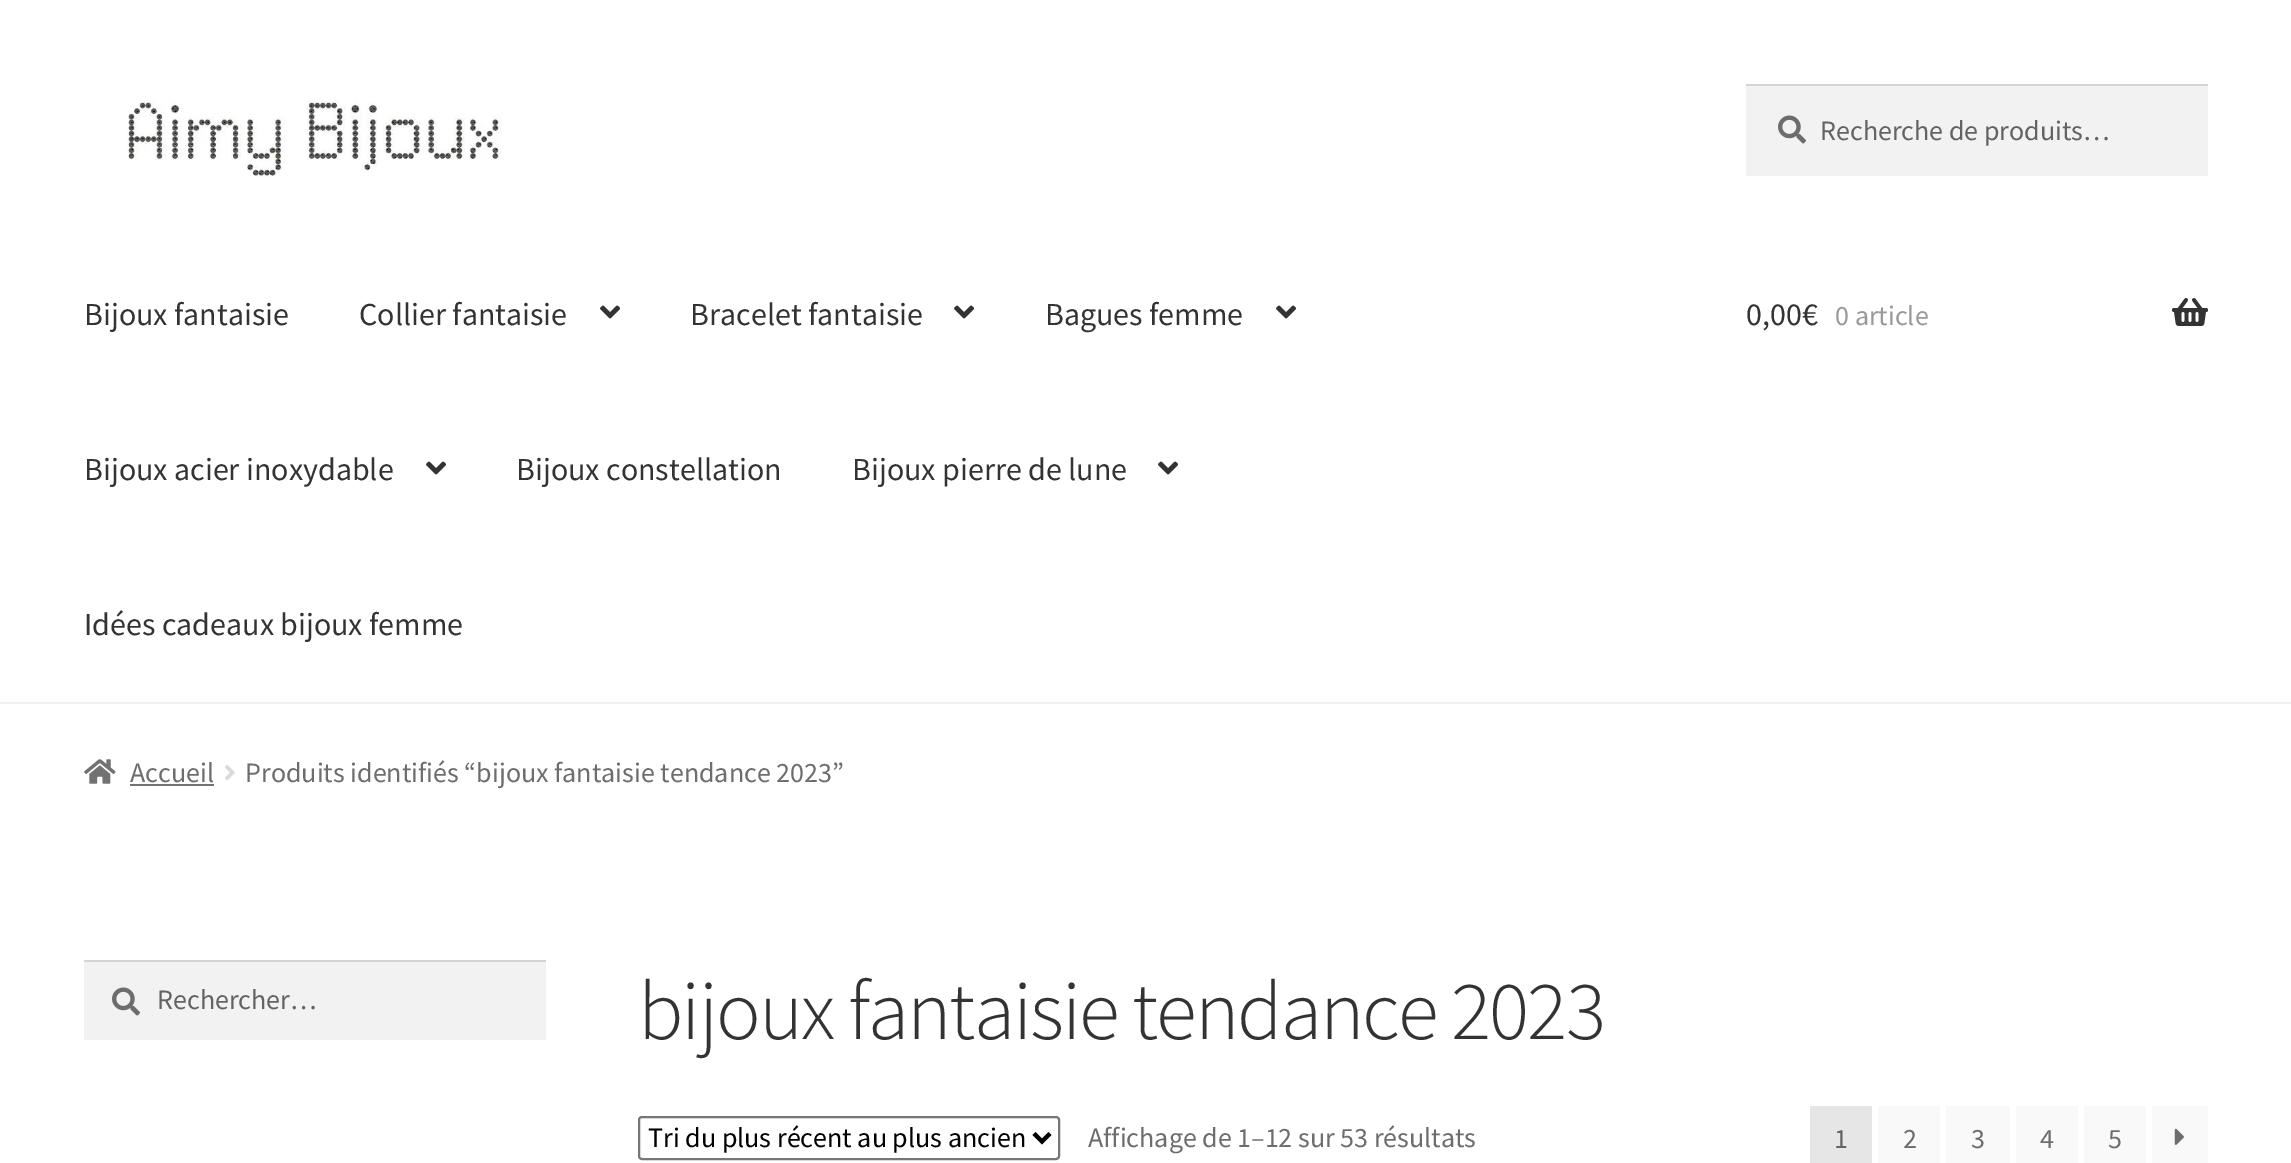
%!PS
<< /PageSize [2291 1163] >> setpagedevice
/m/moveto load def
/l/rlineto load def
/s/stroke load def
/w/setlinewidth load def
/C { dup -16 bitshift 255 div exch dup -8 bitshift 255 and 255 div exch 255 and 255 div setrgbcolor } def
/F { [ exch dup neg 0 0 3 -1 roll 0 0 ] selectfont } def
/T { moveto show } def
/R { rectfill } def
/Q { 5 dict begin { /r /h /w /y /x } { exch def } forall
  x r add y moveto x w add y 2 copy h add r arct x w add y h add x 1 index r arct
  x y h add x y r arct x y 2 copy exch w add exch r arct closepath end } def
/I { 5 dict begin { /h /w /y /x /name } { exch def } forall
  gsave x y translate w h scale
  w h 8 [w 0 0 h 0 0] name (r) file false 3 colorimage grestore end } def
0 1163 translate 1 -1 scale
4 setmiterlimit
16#FFFFFF C
0 0 2291 1163 R
16#F0F0F0 C
0 702 2291 2 R
(1.rgb) 127 100 375 77 I
16#F2F2F2 C
1746 86 462 90 R
(2.rgb) 1778 115 28 29 I
16#D4D4D4 C
1746 84 462 2 R
/SourceSansPro-Regular 28 F
16#636363 C
(Recherche de produits…) 1820 140 T
/SourceSansPro-Regular 32 F
16#333333 C
(Bijoux fantaisie) 84 325 T
(Collier fantaisie) 359 325 T
(3.rgb) 600 305 20 14 I
(Bracelet fantaisie) 690 325 T
(3.rgb) 954 305 20 14 I
(Bagues femme) 1045 325 T
(3.rgb) 1276 305 20 14 I
(Bijoux acier inoxydable) 84 480 T
(3.rgb) 426 461 20 14 I
(Bijoux constellation) 516 480 T
(Bijoux pierre de lune) 852 480 T
(3.rgb) 1158 461 20 14 I
(Idées cadeaux bijoux femme) 84 635 T
(0,00€) 1746 325 T
/SourceSansPro-Regular 28 F
16#999999 C
(0 article) 1835 325 T
(4.rgb) 2172 298 36 28 I
(5.rgb) 84 759 32 25 I
16#6D6D6D C
(Accueil) 130 782 T
16#727272 C
130 784 84 2 R
(6.rgb) 225 765 10 16 I
16#6D6D6D C
(Produits identifiés “bijoux fantaisie tendance 2023”) 245 782 T
16#F2F2F2 C
84 962 462 78 R
(2.rgb) 112 987 28 29 I
16#D4D4D4 C
84 960 462 2 R
16#636363 C
(Rechercher…) 157 1009 T
/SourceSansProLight-Light 83.75 F
16#333333 C
638 1039 m -2 0 (bijoux fantaisie tendance 2023) ashow
16#767676 C
2 w
639 1117 420 42 3 Q s
16#000000 C
4 w
1034 1133.5 m 8 8 l 8 -8 l s
/SourceSansPro-Regular 28 F
(Tri du plus récent au plus ancien) 648 1147 T
16#6D6D6D C
(Affichage de 1–12 sur 53 résultats) 1088 1147 T
16#E6E6E6 C
1810 1106 62 57 R
16#636363 C
(1) 1834 1148 T
16#F9F9F9 C
1878 1106 62 57 R
16#6D6D6D C
(2) 1903 1148 T
16#F9F9F9 C
1946 1106 64 57 R
16#6D6D6D C
(3) 1971 1148 T
16#F9F9F9 C
2016 1106 62 57 R
16#6D6D6D C
(4) 2040 1148 T
16#F9F9F9 C
2084 1106 62 57 R
16#6D6D6D C
(5) 2108 1148 T
16#F9F9F9 C
2152 1106 56 57 R
(7.rgb) 2174 1128 10 17 I
showpage
